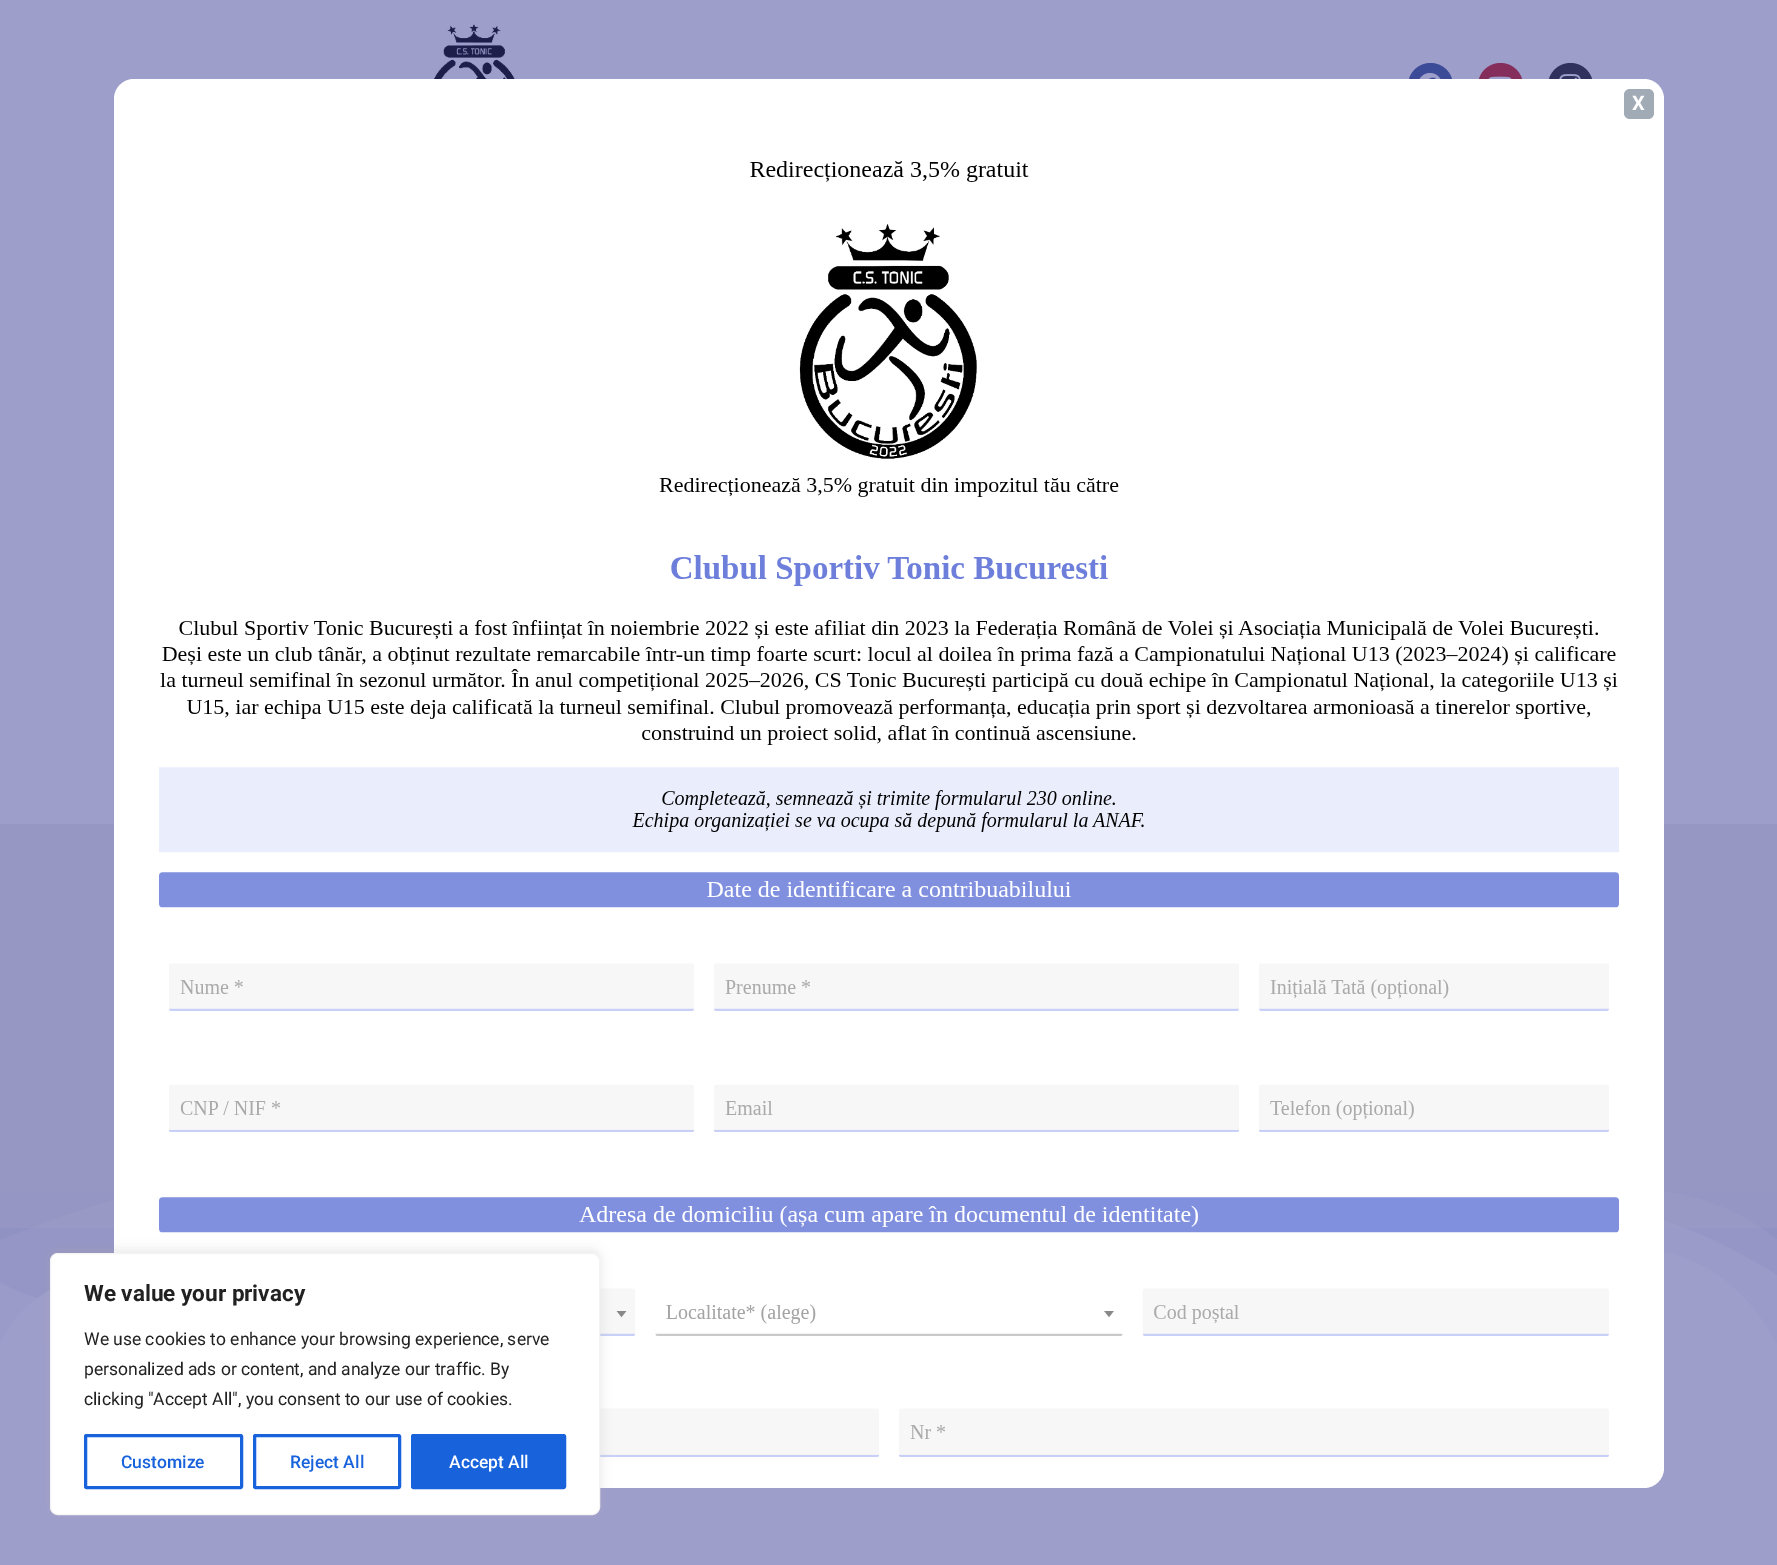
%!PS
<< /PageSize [1777 1565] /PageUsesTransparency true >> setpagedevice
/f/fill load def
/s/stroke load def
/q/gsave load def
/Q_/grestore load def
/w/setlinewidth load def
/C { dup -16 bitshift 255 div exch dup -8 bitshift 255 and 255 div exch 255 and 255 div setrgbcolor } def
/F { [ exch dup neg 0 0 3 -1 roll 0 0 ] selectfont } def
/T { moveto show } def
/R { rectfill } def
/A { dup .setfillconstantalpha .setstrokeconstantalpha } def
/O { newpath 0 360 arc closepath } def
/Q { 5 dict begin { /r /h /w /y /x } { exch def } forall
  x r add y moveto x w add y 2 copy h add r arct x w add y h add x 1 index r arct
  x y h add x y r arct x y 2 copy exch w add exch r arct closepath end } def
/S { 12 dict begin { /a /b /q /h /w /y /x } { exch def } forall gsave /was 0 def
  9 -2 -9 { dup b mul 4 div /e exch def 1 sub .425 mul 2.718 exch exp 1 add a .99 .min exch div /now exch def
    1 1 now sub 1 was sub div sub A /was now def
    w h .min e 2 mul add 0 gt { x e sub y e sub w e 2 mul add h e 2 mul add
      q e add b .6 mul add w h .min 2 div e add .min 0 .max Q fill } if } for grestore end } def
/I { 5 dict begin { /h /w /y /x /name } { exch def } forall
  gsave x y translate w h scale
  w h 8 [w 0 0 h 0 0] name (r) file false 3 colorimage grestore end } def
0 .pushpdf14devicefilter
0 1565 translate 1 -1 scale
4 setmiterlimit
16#9E9ECB C
0 0 1777 1565 R
(1.rgb) 434 24 81 55 I
16#3C4B97 C
1430.5 85.5 22.5 O f
(2.rgb) 1419 73 22 6 I
16#852E5B C
1500.5 85.5 22.5 O f
(3.rgb) 1488 76 24 3 I
16#31315E C
1570.5 85.5 22.5 O f
(4.rgb) 1559 74 22 5 I
16#9797C4 C
0 824 1777 404 R
16#9193C3 C
0 1228 1777 116 R
(6.rgb) 0 1191 1777 154 I
16#FFFFFF C
114 79 1550 1409 20 Q f
16#A1ABB5 C
1624 89 30 30 6 Q f
/Roboto-Bold 20 F
16#FFFFFF C
(X) 1632 110 T
(5.rgb) 159 161 1460 1296 I
16#ACABAB C
50 1251 550 263 8 6 .3 S
16#FFFFFF C
50.5 1253.5 549 261 7.5 Q q f Q_
16#F4F4F4 C
s
/Roboto-Bold 22.5 F
16#212121 C
(We value your privacy) 84 1301 T
/Roboto-Regular 17.5 F
(We use cookies to enhance your browsing experience, serve) 84 1345 T
(personalized ads or content, and analyze our traffic. By) 84 1375 T
(clicking "Accept All", you consent to our use of cookies.) 84 1405 T
16#1863DC C
3 w
85.5 1435.5 156 52 1 Q s
/Roboto-Medium 17.5 F
(Customize) 121 1468 T
254.5 1435.5 145 52 1 Q s
(Reject All) 290 1468 T
412.5 1435.5 152 52 1 Q q f Q_
s
16#FFFFFF C
(Accept All) 449 1468 T
.poppdf14devicefilter showpage
